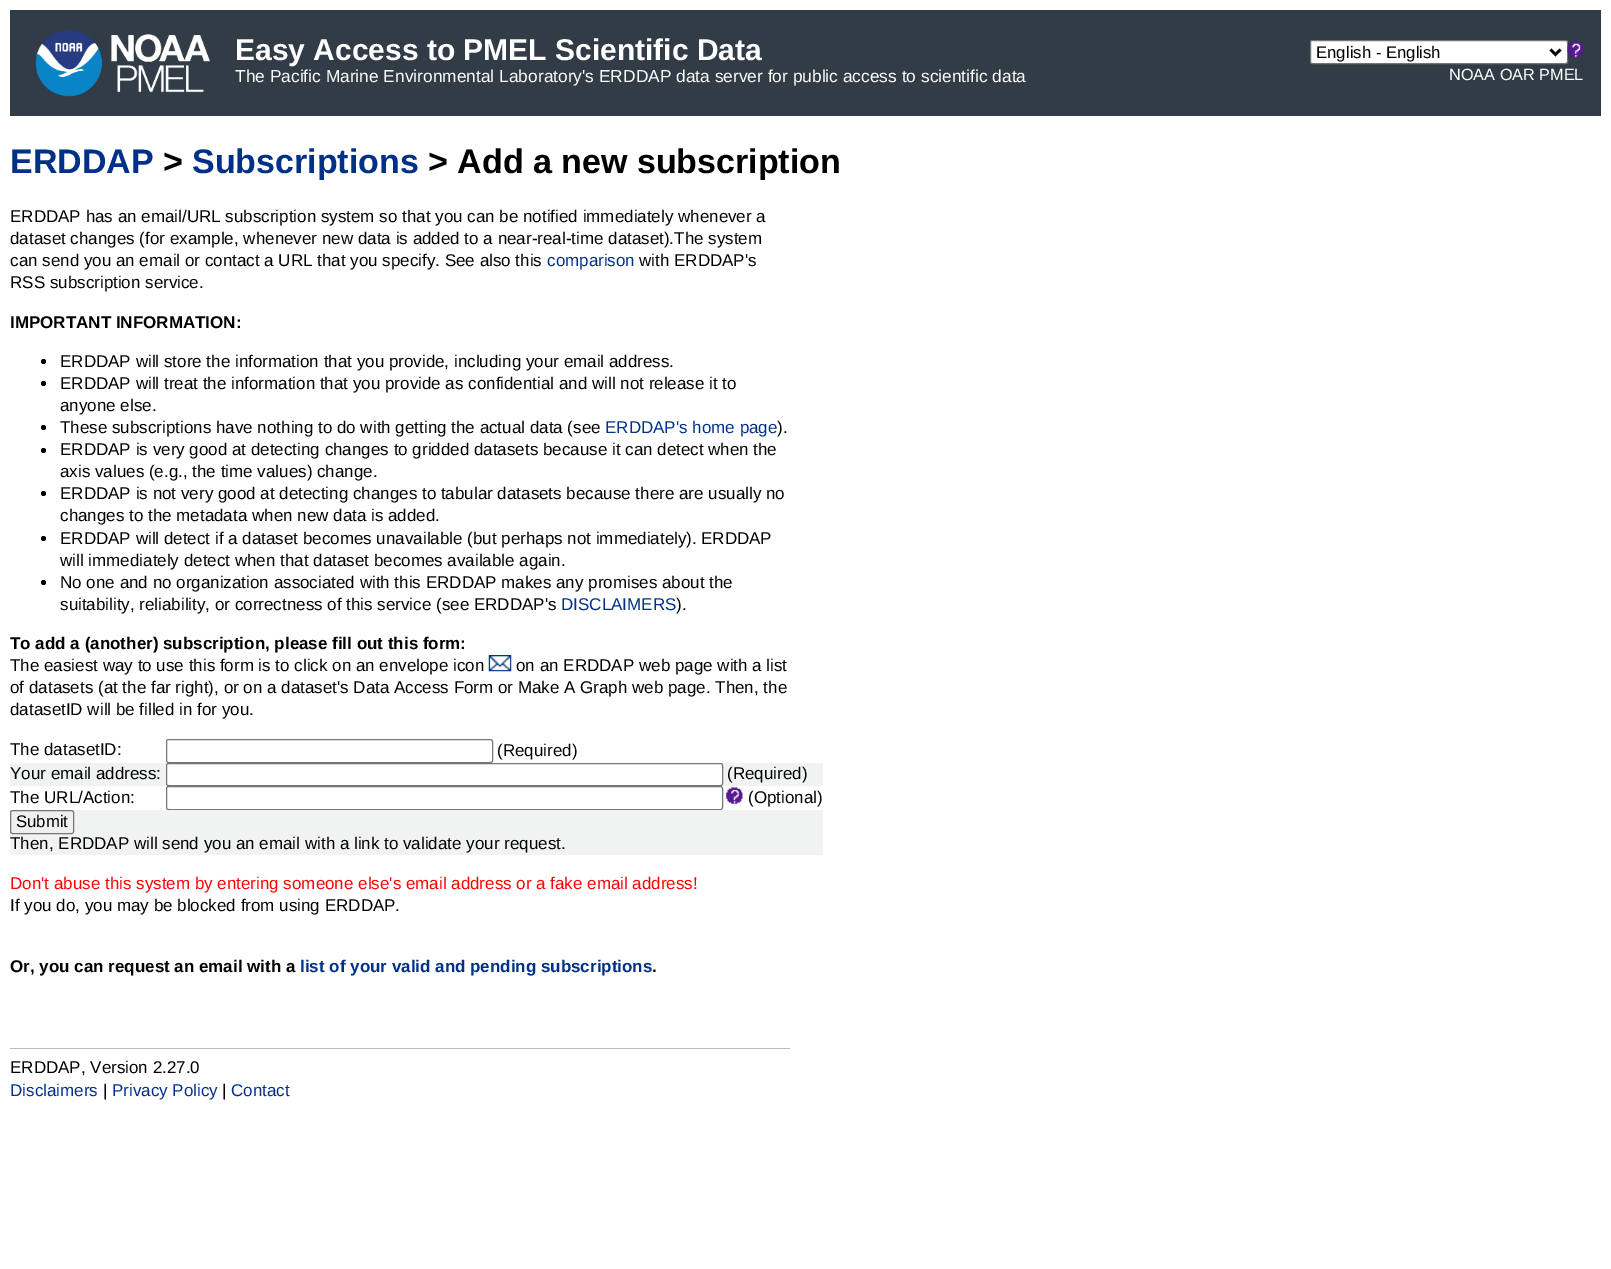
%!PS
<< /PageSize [1611 1269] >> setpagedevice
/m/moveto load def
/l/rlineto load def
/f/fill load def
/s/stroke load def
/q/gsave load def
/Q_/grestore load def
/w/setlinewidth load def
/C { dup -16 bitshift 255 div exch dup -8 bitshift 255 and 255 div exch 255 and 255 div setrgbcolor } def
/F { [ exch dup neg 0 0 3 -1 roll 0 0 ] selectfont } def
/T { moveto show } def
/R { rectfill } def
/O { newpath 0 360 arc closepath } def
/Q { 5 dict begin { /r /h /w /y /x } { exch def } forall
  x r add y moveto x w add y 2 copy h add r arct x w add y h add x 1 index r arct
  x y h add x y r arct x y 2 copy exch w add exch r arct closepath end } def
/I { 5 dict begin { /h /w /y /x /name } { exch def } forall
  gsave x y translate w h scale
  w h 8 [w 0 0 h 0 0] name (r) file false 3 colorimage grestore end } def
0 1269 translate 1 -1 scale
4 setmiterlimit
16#FFFFFF C
0 0 1611 1269 R
16#323C46 C
10 10 1591 106 R
(1.rgb) 35 29 175 68 I
/LiberationSans-Bold 30 F
16#FFFFFF C
(Easy Access to PMEL Scientific Data) 235 60 T
/LiberationSans-Regular 17.35 F
(The Pacific Marine Environmental Laboratory's ERDDAP data server for public access to scientific data) 235 82 T
1310.5 40.5 257 23 2 Q q f Q_
16#767676 C
s
16#000000 C
2.5 w
1550.5 49.5 m 5 5 l 5 -5 l s
/LiberationSans-Regular 16.75 F
(English - English) 1316 58 T
(2.rgb) 1567 41 17 17 I
/LiberationSans-Regular 16.25 F
16#FFFFFF C
(NOAA OAR PMEL) 1449 80 T
/LiberationSans-Bold 34 F
16#003087 C
(ERDDAP) 10 173 T
16#000000 C
(>) 163 173 T
16#003087 C
(Subscriptions) 192 173 T
16#000000 C
(> Add a new subscription) 428 173 T
/LiberationSans-Regular 17 F
(ERDDAP has an email/URL subscription system so that you can be notified immediately whenever a) 10 222 T
(dataset changes \(for example, whenever new data is added to a near-real-time dataset\).The system) 10 244 T
(can send you an email or contact a URL that you specify. See also this) 10 266 T
16#003087 C
(comparison) 547 266 T
16#000000 C
(with ERDDAP's) 639 266 T
(RSS subscription service.) 10 288 T
/LiberationSans-Bold 17 F
(IMPORTANT INFORMATION:) 10 328 T
43.5 361.5 2.5 O f
/LiberationSans-Regular 17 F
(ERDDAP will store the information that you provide, including your email address.) 60 367 T
43.5 383.5 2.5 O f
(ERDDAP will treat the information that you provide as confidential and will not release it to) 60 389 T
(anyone else.) 60 411 T
43.5 427.5 2.5 O f
(These subscriptions have nothing to do with getting the actual data \(see) 60 433 T
16#003087 C
(ERDDAP's home page) 605 433 T
16#000000 C
(\).) 777 433 T
43.5 450.5 2.5 O f
(ERDDAP is very good at detecting changes to gridded datasets because it can detect when) 60 455 T
(the) 753 455 T
(axis values \(e.g., the time values\) change.) 60 477 T
43.5 493.5 2.5 O f
(ERDDAP is not very good at detecting changes to tabular datasets because there are usually) 60 499 T
(no) 766 499 T
(changes to the metadata when new data is added.) 60 521 T
43.5 538.5 2.5 O f
(ERDDAP will detect if a dataset becomes unavailable \(but perhaps not immediately\).) 60 544 T
(ERDDAP) 701 544 T
(will immediately detect when that dataset becomes available again.) 60 566 T
43.5 582.5 2.5 O f
(No one and no organization associated with this ERDDAP makes any promises about the) 60 588 T
(suitability, reliability, or correctness of this service \(see ERDDAP's) 60 610 T
16#003087 C
(DISCLAIMERS) 561 610 T
16#000000 C
(\).) 676 610 T
/LiberationSans-Bold 17 F
(To add a \(another\) subscription, please fill out this form:) 10 649 T
/LiberationSans-Regular 17 F
(The easiest way to use this form is to click on an envelope icon) 10 671 T
(3.rgb) 488 655 24 17 I
(on an ERDDAP web page with a list) 516 671 T
(of datasets \(at the far right\), or on a dataset's Data Access Form or Make A Graph web page. Then, the) 10 693 T
(datasetID will be filled in for you.) 10 715 T
(The datasetID:) 10 755 T
16#767676 C
1 w
166.5 739.5 326 23 2 Q s
16#000000 C
(\(Required\)) 497 756 T
16#F1F3F3 C
10 763 813 23 R
16#000000 C
(Your email address:) 10 779 T
16#FFFFFF C
166.5 763.5 556 22 2 Q q f Q_
16#767676 C
s
16#000000 C
(\(Required\)) 727 779 T
(The URL/Action:) 10 803 T
16#767676 C
166.5 786.5 556 23 2 Q s
(4.rgb) 726 787 17 17 I
16#000000 C
(\(Optional\)) 748 803 T
16#F1F3F3 C
10 810 813 45 R
16#EFEFEF C
10.5 810.5 63 23 2 Q q f Q_
16#767676 C
s
/LiberationSans-Regular 16.75 F
16#000000 C
(Submit) 16 827 T
/LiberationSans-Regular 17 F
(Then, ERDDAP will send you an email with a link to validate your request.) 10 849 T
16#FF0000 C
(Don't abuse this system by entering someone else's email address or a fake email address!) 10 889 T
16#000000 C
(If you do, you may be blocked from using ERDDAP.) 10 911 T
/LiberationSans-Bold 17 F
(Or, you can request an email with a) 10 972 T
16#003087 C
(list of your valid and pending subscriptions) 300 972 T
16#000000 C
(.) 652 972 T
16#BBBBBB C
10 1048 780 1 R
/LiberationSans-Regular 17 F
16#000000 C
(ERDDAP, Version 2.27.0) 10 1073 T
16#003087 C
(Disclaimers) 10 1096 T
16#000000 C
(|) 103 1096 T
16#003087 C
(Privacy Policy) 112 1096 T
16#000000 C
(|) 222 1096 T
16#003087 C
(Contact) 231 1096 T
showpage
